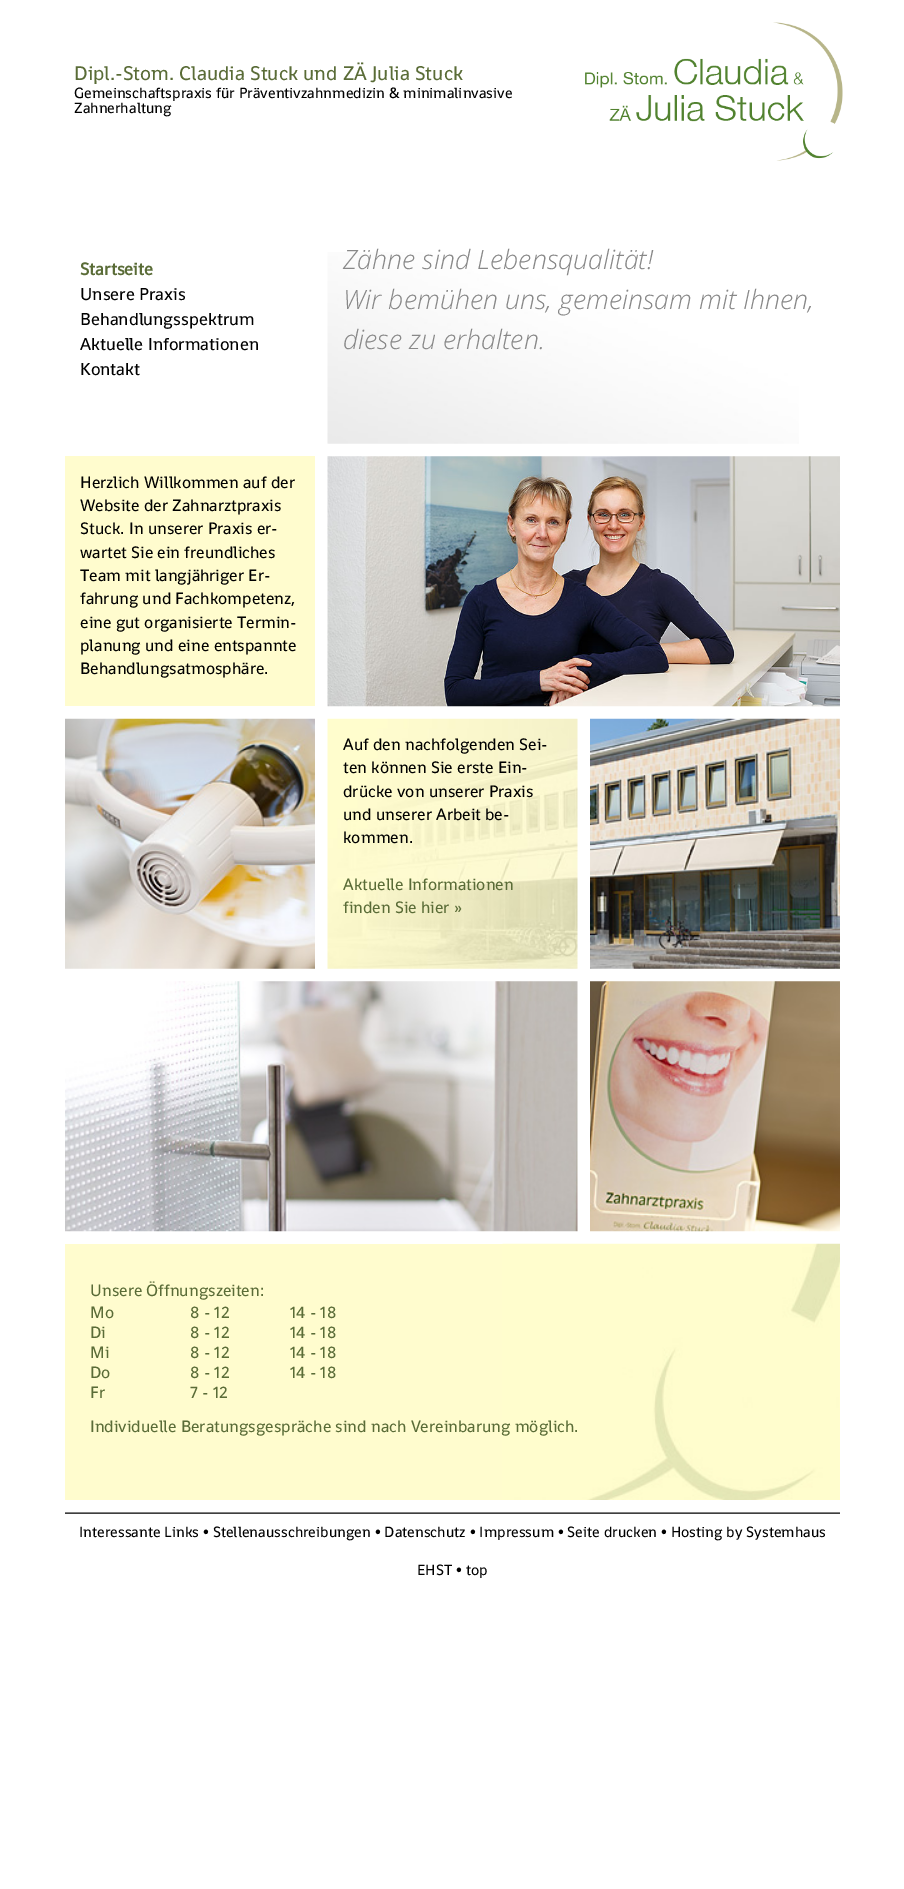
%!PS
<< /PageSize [904 1889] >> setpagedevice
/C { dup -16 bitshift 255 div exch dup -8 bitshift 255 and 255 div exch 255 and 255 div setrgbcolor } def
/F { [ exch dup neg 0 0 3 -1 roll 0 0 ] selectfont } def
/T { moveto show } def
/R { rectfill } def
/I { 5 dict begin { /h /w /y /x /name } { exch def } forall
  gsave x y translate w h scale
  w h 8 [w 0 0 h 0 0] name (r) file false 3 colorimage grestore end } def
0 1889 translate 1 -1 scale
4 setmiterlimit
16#FFFFFF C
0 0 904 1889 R
/Shanti-Regular 20 F
16#5A6C37 C
(Dipl.-Stom. Claudia Stuck und ZÄ Julia Stuck) 74 80 T
/Shanti-Regular 15 F
16#000000 C
(Gemeinschaftspraxis für Präventivzahnmedizin & minimalinvasive) 74 98 T
(Zahnerhaltung) 74 113 T
(1.rgb) 585 22 258 139 I
/Shanti-Bold 17.5 F
16#5A6C37 C
(Startseite) 80 275 T
/Shanti-Regular 17.5 F
16#000000 C
(Unsere Praxis) 80 300 T
(Behandlungsspektrum) 80 325 T
(Aktuelle Informationen) 80 350 T
(Kontakt) 80 375 T
(2.rgb) 327 252 472 192 I
/OpenSans-LightItalic 26.7 F
16#888888 C
(Zähne sind Lebensqualität!) 343 269 T
(Wir bemühen uns, gemeinsam mit Ihnen,) 343 309 T
(diese zu erhalten.) 343 349 T
16#FFFCCE C
65 456 250 250 R
/Shanti-Regular 16.7 F
16#000000 C
(Herzlich Willkommen auf der) 80 488 T
(Website der Zahnarztpraxis) 80 511 T
(Stuck. In unserer Praxis er-) 80 534 T
(wartet Sie ein freundliches) 80 558 T
(Team mit langjähriger Er-) 80 581 T
(fahrung und Fachkompetenz,) 80 604 T
(eine gut organisierte Termin-) 80 628 T
(planung und eine entspannte) 80 651 T
(Behandlungsatmosphäre.) 80 674 T
(3.rgb) 327 456 513 251 I
(4.rgb) 65 718 250 251 I
(5.rgb) 327 718 251 251 I
(Auf den nachfolgenden Sei-) 343 750 T
(ten können Sie erste Ein-) 343 773 T
(drücke von unserer Praxis) 343 797 T
(und unserer Arbeit be-) 343 820 T
(kommen.) 343 843 T
16#5A6C37 C
(Aktuelle Informationen) 343 890 T
(finden Sie hier ») 343 913 T
(6.rgb) 590 718 250 251 I
(7.rgb) 65 981 513 251 I
(8.rgb) 590 981 250 251 I
16#FFFCCE C
65 1244 438 256 R
(9.rgb) 502 1243 338 257 I
16#5A6C37 C
(Unsere Öffnungszeiten:) 90 1296 T
(Mo) 90 1318 T
(8 - 12) 190 1318 T
(14 - 18) 290 1318 T
(Di) 90 1338 T
(8 - 12) 190 1338 T
(14 - 18) 290 1338 T
(Mi) 90 1358 T
(8 - 12) 190 1358 T
(14 - 18) 290 1358 T
(Do) 90 1378 T
(8 - 12) 190 1378 T
(14 - 18) 290 1378 T
(Fr) 90 1398 T
(7 - 12) 190 1398 T
(Individuelle Beratungsgespräche sind nach Vereinbarung möglich.) 90 1432 T
(10.rgb) 65 1512 775 2 I
/Shanti-Regular 15 F
16#000000 C
(Interessante Links • Stellenausschreibungen • Datenschutz • Impressum • Seite drucken • Hosting by Systemhaus) 79 1537 T
(EHST • top) 417 1575 T
showpage
